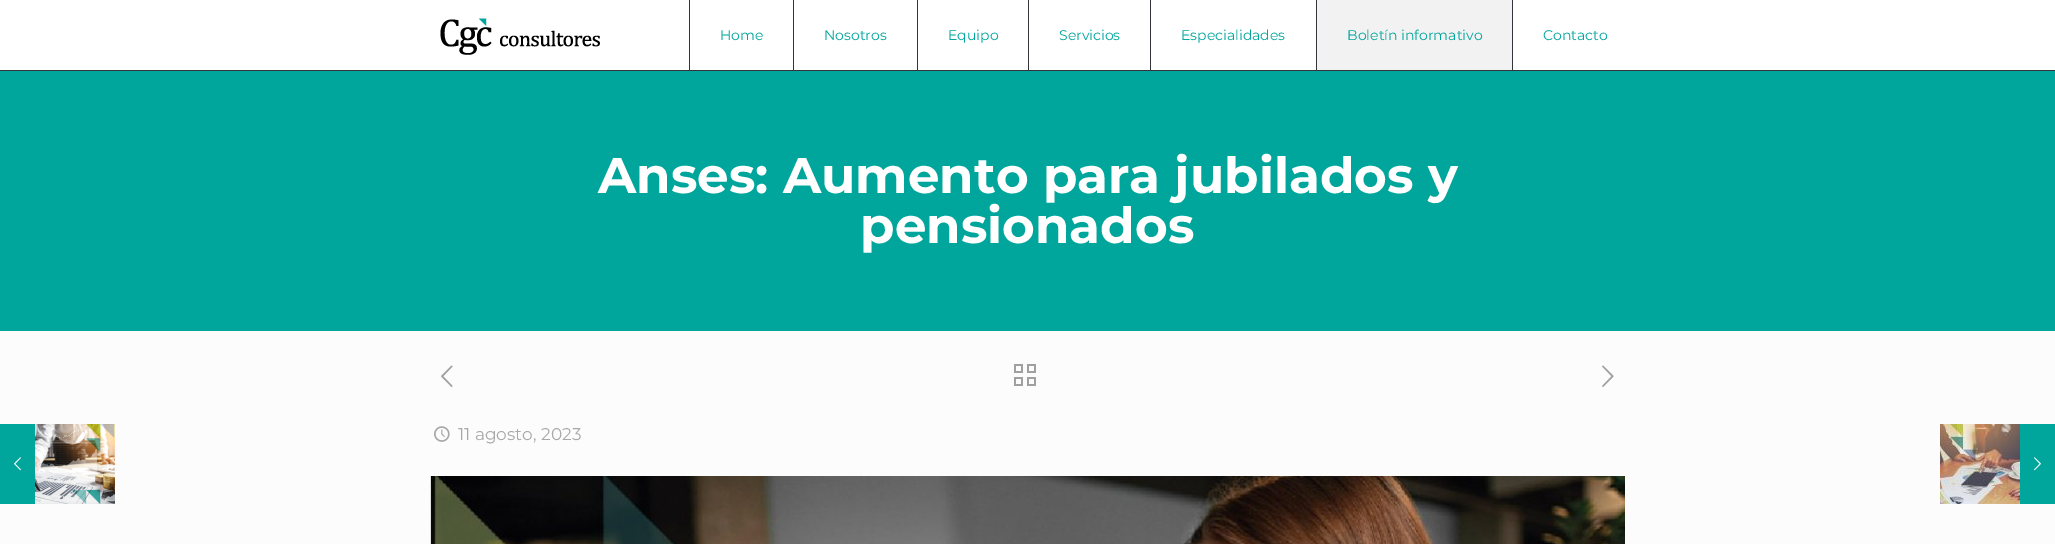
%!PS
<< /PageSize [2055 544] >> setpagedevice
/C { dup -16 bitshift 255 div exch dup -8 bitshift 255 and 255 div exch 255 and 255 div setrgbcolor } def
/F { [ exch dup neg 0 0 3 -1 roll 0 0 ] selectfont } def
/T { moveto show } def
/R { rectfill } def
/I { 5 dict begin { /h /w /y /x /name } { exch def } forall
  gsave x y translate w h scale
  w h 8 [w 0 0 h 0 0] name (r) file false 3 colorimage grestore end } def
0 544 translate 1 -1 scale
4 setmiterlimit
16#FCFCFC C
0 0 2055 544 R
16#FFFFFF C
0 0 2055 70 R
16#34353A C
0 70 2055 1 R
(1.rgb) 440 18 160 37 I
793 0 1 70 R
689 0 1 70 R
/Montserrat-Regular 14 F
16#00A69C C
(Home) 720 40 T
16#34353A C
917 0 1 70 R
16#00A69C C
(Nosotros) 824 40 T
16#34353A C
1028 0 1 70 R
16#00A69C C
(Equipo) 948 40 T
16#34353A C
1150 0 1 70 R
16#00A69C C
(Servicios) 1059 40 T
16#34353A C
1316 0 1 70 R
16#00A69C C
(Especialidades) 1181 40 T
16#F2F2F2 C
1317 0 195 70 R
16#34353A C
1512 0 1 70 R
16#00A69C C
(Boletín informativo) 1347 40 T
(Contacto) 1543 40 T
0 71 2055 260 R
/Montserrat-Bold 50 F
16#FFFFFF C
(Anses: Aumento para jubilados y) 598 193 T
(pensionados) 860 243 T
(2.rgb) 441 365 12 22 I
(3.rgb) 1014 364 22 22 I
(4.rgb) 1602 365 12 22 I
(5.rgb) 434 426 16 16 I
/Montserrat-Regular 17 F
16#A8A8A8 C
(11 agosto, 2023) 458 440 T
(6.rgb) 430 476 1195 68 I
16#00A69C C
0 424 35 80 R
(7.rgb) 14 457 7 14 I
(8.rgb) 35 424 80 80 I
(9.rgb) 1940 424 80 80 I
2020 424 35 80 R
(10.rgb) 2034 457 7 14 I
showpage
